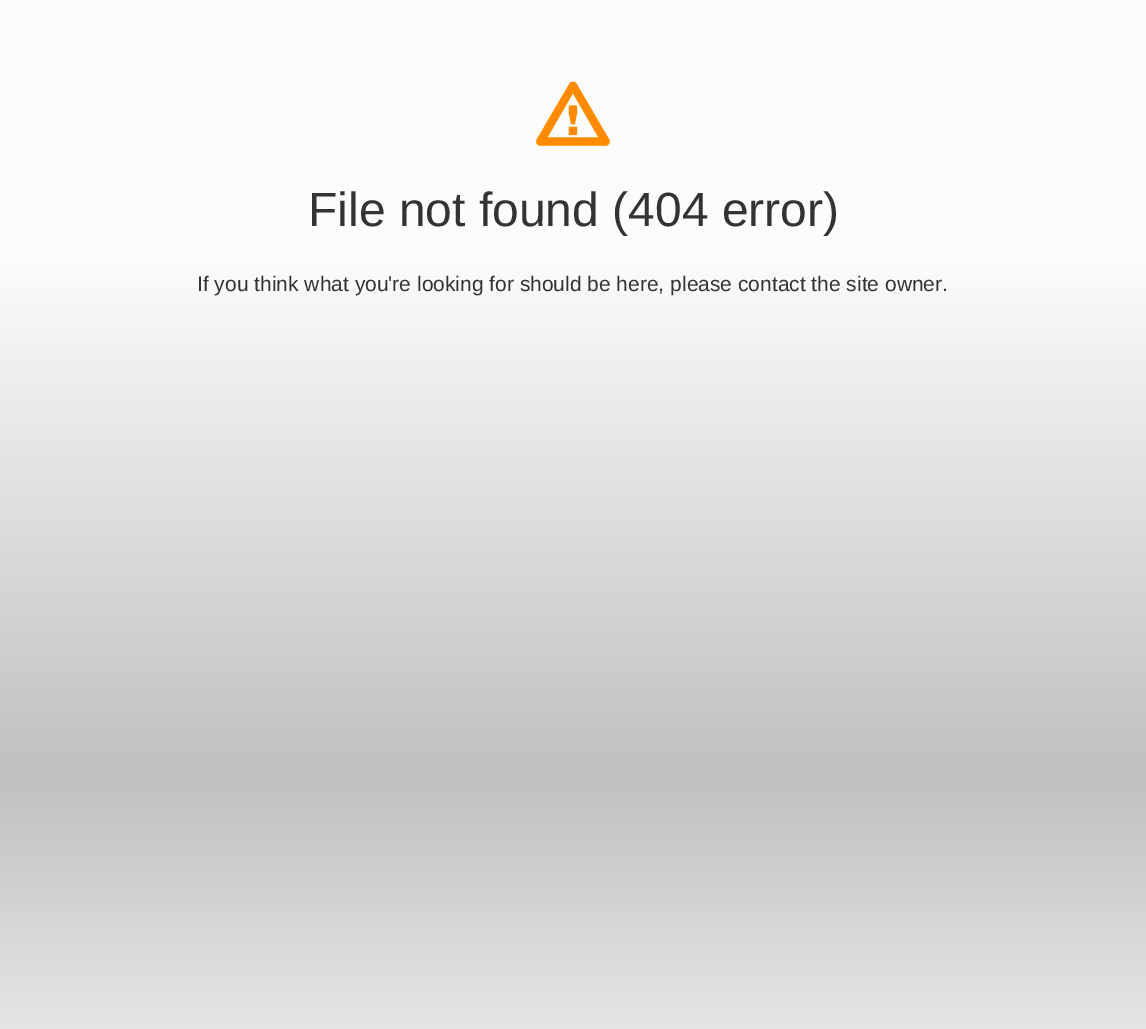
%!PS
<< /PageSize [1146 1029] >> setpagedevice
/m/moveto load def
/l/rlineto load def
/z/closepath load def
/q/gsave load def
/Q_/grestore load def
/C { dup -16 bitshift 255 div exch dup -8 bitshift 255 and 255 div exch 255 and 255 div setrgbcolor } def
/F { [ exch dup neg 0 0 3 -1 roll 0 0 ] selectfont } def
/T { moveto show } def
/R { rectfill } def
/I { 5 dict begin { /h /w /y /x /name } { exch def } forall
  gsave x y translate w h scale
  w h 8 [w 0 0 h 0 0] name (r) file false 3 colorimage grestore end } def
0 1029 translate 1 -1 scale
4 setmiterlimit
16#FFFFFF C
0 0 1146 1029 R
q 0 0 m 1146 0 l 0 1029 l -1146 0 l z clip newpath
<< /ShadingType 2 /ColorSpace /DeviceRGB /Coords [573 0 573 1029] /Extend [true true] /Function << /FunctionType 3 /Domain [0 1] /Functions [<< /FunctionType 2 /Domain [0 1] /C0 [.988 .988 .988] /C1 [.988 .988 .988] /N 1 >> << /FunctionType 2 /Domain [0 1] /C0 [.988 .988 .988] /C1 [.753 .753 .753] /N 1 >> << /FunctionType 2 /Domain [0 1] /C0 [.753 .753 .753] /C1 [.898 .898 .898] /N 1 >>] /Bounds [.25 .75] /Encode [0 1 0 1 0 1] >> >> shfill Q_
(1.rgb) 536 81 74 65 I
/LiberationSans-Regular 48 F
16#333333 C
(File not found \(404 error\)) 308 226 T
/LiberationSans-Regular 21 F
(If you think what you're looking for should be here, please contact the site owner.) 197 291 T
showpage
